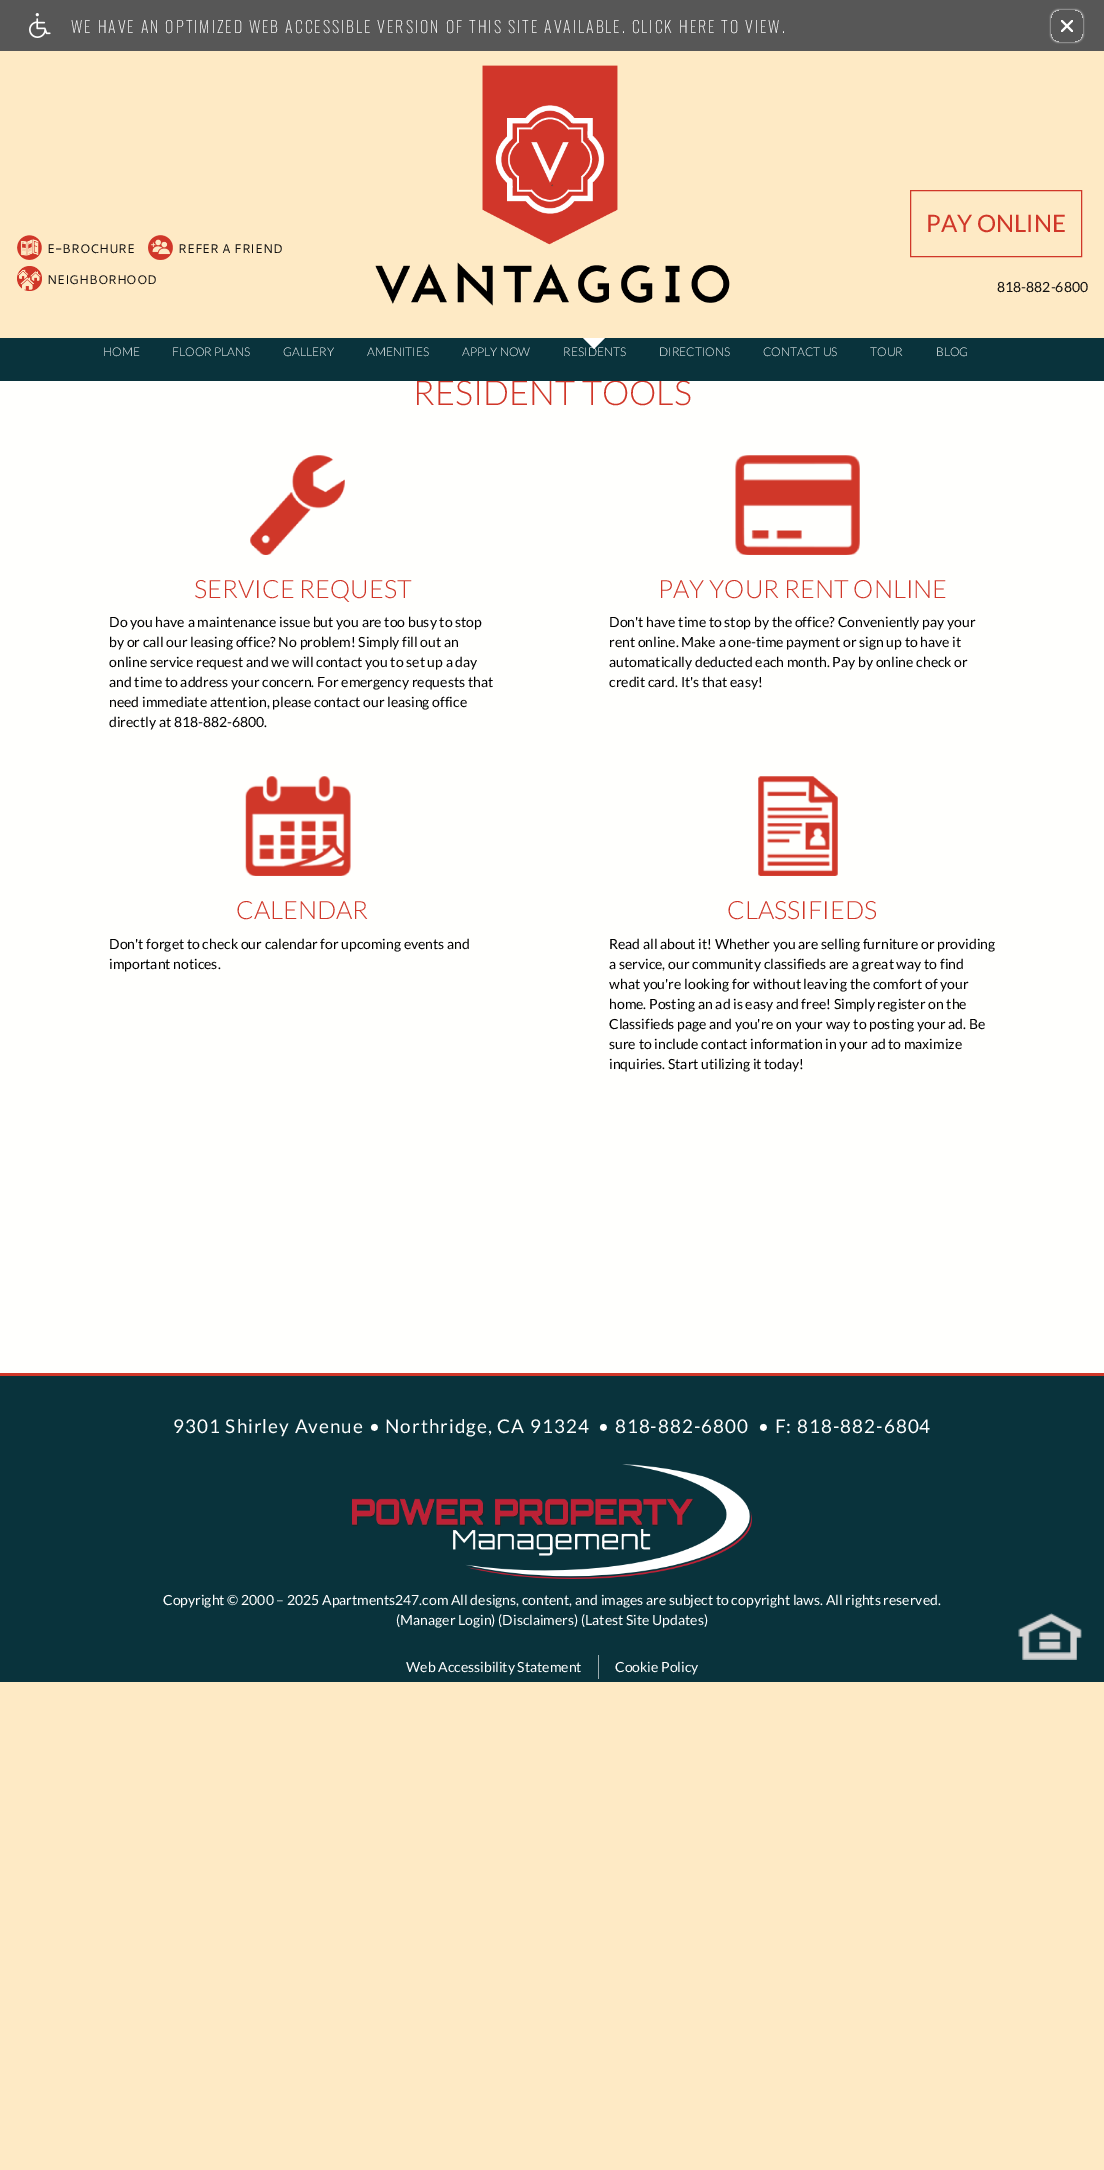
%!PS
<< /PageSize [1104 2170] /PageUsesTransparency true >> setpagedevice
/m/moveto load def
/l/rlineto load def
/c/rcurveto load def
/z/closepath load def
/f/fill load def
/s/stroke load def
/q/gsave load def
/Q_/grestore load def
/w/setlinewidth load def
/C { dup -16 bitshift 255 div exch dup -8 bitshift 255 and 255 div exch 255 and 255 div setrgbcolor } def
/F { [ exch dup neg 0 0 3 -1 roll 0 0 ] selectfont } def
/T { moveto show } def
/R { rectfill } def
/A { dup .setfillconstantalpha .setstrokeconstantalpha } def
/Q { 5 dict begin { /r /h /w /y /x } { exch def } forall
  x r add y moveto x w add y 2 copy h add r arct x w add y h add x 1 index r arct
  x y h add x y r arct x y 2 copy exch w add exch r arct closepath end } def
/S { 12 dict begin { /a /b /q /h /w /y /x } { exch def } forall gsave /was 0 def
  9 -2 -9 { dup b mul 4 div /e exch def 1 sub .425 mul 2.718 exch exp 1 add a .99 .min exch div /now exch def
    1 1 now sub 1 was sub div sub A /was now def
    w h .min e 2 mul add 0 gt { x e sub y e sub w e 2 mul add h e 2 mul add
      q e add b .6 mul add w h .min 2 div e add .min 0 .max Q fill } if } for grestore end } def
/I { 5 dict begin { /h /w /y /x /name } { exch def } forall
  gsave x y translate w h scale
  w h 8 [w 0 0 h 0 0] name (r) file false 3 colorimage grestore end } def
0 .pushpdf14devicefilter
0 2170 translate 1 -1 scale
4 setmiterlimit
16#FEEAC5 C
0 0 1104 2170 R
16#575757 C
0 0 1104 51 R
(1.rgb) 29 13 22 25 I
/Oswald-ExtraLight 16 F
16#FFFFFF C
71 33 m 2 0 (WE HAVE AN OPTIMIZED WEB ACCESSIBLE VERSION OF THIS SITE AVAILABLE. CLICK HERE TO VIEW.) ashow
q
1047 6 m 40 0 l 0 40 l -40 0 l z 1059 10 m 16 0 l 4.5 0 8 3.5 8 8 c 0 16 l 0 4.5 -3.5 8 -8 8 c -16 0 l -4.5 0 -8 -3.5 -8 -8 c 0 -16 l 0 -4.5 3.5 -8 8 -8 c z eoclip newpath
1051 10 32 32 8 1 1 S
Q_
q
1061 20 12 12 rectclip
2 w
1061 32 m 12 -12 l 1061 20 m 12 12 l s
Q_
(2.rgb) 17 235 25 25 I
/Cantarell-Regular 12.5 F
16#0F0F0F C
(E-BROCHURE) 47 253 T
(3.rgb) 148 235 25 25 I
(REFER A FRIEND) 178 253 T
(4.rgb) 17 266 25 25 I
(NEIGHBORHOOD) 47 284 T
(5.rgb) 375 65 355 241 I
16#D03729 C
910.5 190.5 171 66 rectstroke
/Lato-Regular 24 F
(PAY ONLINE) 926 232 T
/Lato-Regular 14 F
16#0F0F0F C
(818-882-6800) 997 292 T
16#FFFFFD C
0 381 1104 992 R
/Lato-Light 34.25 F
16#D03729 C
(RESIDENT TOOLS) 413 405 T
16#09333C C
0 338 1104 43 R
/Lato-Light 12 F
16#FFFFFF C
(HOME) 103 356 T
(FLOOR PLANS) 172 356 T
(GALLERY) 283 356 T
(AMENITIES) 367 356 T
(APPLY NOW) 462 356 T
583 338 m 22 0 l -11 11 l z f
(RESIDENTS) 563 356 T
(DIRECTIONS) 659 356 T
(CONTACT US) 763 356 T
(TOUR) 870 356 T
(BLOG) 936 356 T
16#D03729 C
0 1373 1104 3 R
(6.rgb) 250 455 95 100 I
/Lato-Light 25.25 F
(SERVICE REQUEST) 194 598 T
/Lato-Regular 14 F
16#000000 C
(Do you have a maintenance issue but you are too busy to stop) 109 627 T
(by or call our leasing office? No problem! Simply fill out an) 109 647 T
(online service request and we will contact you to set up a day) 109 667 T
(and time to address your concern. For emergency requests that) 109 687 T
(need immediate attention, please contact our leasing office) 109 707 T
(directly at 818-882-6800.) 109 727 T
(7.rgb) 735 455 125 100 I
/Lato-Light 25.25 F
16#D03729 C
(PAY YOUR RENT ONLINE) 658 598 T
/Lato-Regular 14 F
16#000000 C
(Don't have time to stop by the office? Conveniently pay your) 609 627 T
(rent online. Make a one-time payment or sign up to have it) 609 647 T
(automatically deducted each month. Pay by online check or) 609 667 T
(credit card. It's that easy!) 609 687 T
(8.rgb) 245 776 106 100 I
/Lato-Light 25.25 F
16#D03729 C
(CALENDAR) 236 919 T
/Lato-Regular 14 F
16#000000 C
(Don't forget to check our calendar for upcoming events and) 109 949 T
(important notices.) 109 969 T
(9.rgb) 758 776 80 100 I
/Lato-Light 25.25 F
16#D03729 C
(CLASSIFIEDS) 727 919 T
/Lato-Regular 14 F
16#000000 C
(Read all about it! Whether you are selling furniture or providing) 609 949 T
(a service, our community classifieds are a great way to find) 609 969 T
(what you're looking for without leaving the comfort of your) 609 989 T
(home. Posting an ad is easy and free! Simply register on the) 609 1009 T
(Classifieds page and you're on your way to posting your ad. Be) 609 1029 T
(sure to include contact information in your ad to maximize) 609 1049 T
(inquiries. Start utilizing it today!) 609 1069 T
16#09333C C
0 1376 1104 306 R
/Lato-Regular 18.9 F
16#FFFFFF C
173 1433 m 1 0 (9301 Shirley Avenue • Northridge, CA 91324) ashow
598 1433 m 1 0 (• 818-882-6800) ashow
758 1433 m 1 0 (• F: 818-882-6804) ashow
(10.rgb) 352 1464 400 115 I
/Lato-Regular 14 F
(Copyright © 2000 – 2025 Apartments247.com All designs, content, and images are subject to copyright laws. All rights reserved.) 163 1605 T
(\(Manager Login\) \(Disclaimers\) \(Latest Site Updates\)) 396 1625 T
(11.rgb) 1018 1613 64 47 I
(Web Accessibility Statement) 406 1672 T
16#9DADB1 C
598 1655 1 24 R
16#FFFFFF C
(Cookie Policy) 615 1672 T
.poppdf14devicefilter showpage
